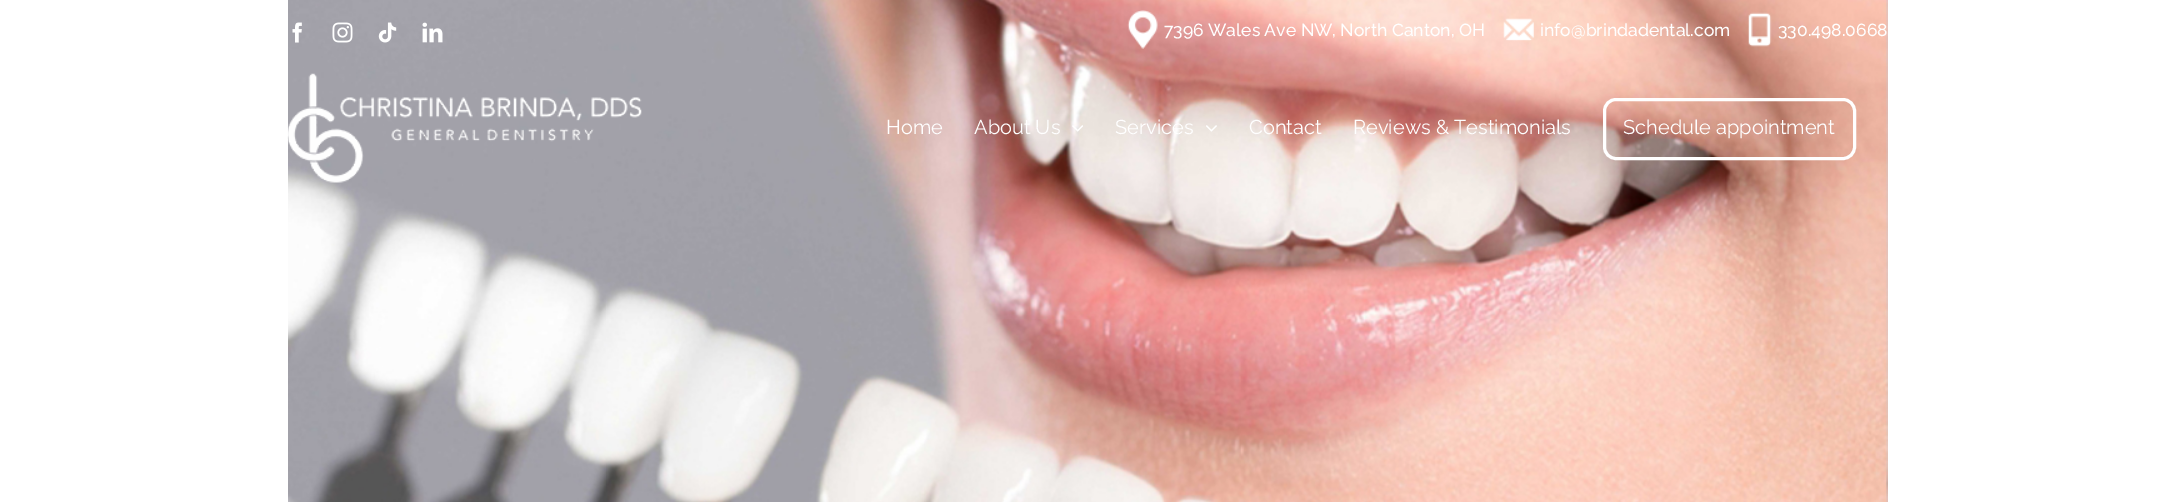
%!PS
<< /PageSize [2174 502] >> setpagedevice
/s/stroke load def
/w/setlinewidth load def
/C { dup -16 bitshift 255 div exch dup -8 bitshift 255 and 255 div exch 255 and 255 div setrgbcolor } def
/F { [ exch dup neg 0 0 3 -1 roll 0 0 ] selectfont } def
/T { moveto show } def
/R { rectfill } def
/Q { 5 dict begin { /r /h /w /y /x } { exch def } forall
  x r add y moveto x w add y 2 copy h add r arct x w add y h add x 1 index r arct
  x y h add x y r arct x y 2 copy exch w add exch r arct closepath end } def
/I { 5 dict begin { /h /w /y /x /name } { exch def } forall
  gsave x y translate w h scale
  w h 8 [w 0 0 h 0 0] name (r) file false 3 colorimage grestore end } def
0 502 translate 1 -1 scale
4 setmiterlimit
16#FFFFFF C
0 0 2174 502 R
(1.rgb) 288 0 1600 502 I
(2.rgb) 292 22 10 21 I
(3.rgb) 332 22 21 21 I
(4.rgb) 378 22 19 21 I
(5.rgb) 422 22 21 21 I
(6.rgb) 1127 10 31 39 I
/Raleway-Medium 17.5 F
(7396 Wales Ave NW, North Canton, OH) 1164 36 T
(7.rgb) 1503 18 31 23 I
(info@brindadental.com) 1540 36 T
(8.rgb) 1748 12 24 35 I
(330.498.0668) 1778 36 T
(9.rgb) 287 73 355 110 I
/Raleway-Regular 20 F
(Home) 886 134 T
(About Us) 974 134 T
(10.rgb) 1072 125 11 7 I
(Services) 1115 134 T
(11.rgb) 1206 125 11 7 I
(Contact) 1249 134 T
(Reviews & Testimonials) 1353 134 T
3 w
1604.5 99.5 250 59 11.5 Q s
(Schedule appointment) 1623 134 T
showpage
